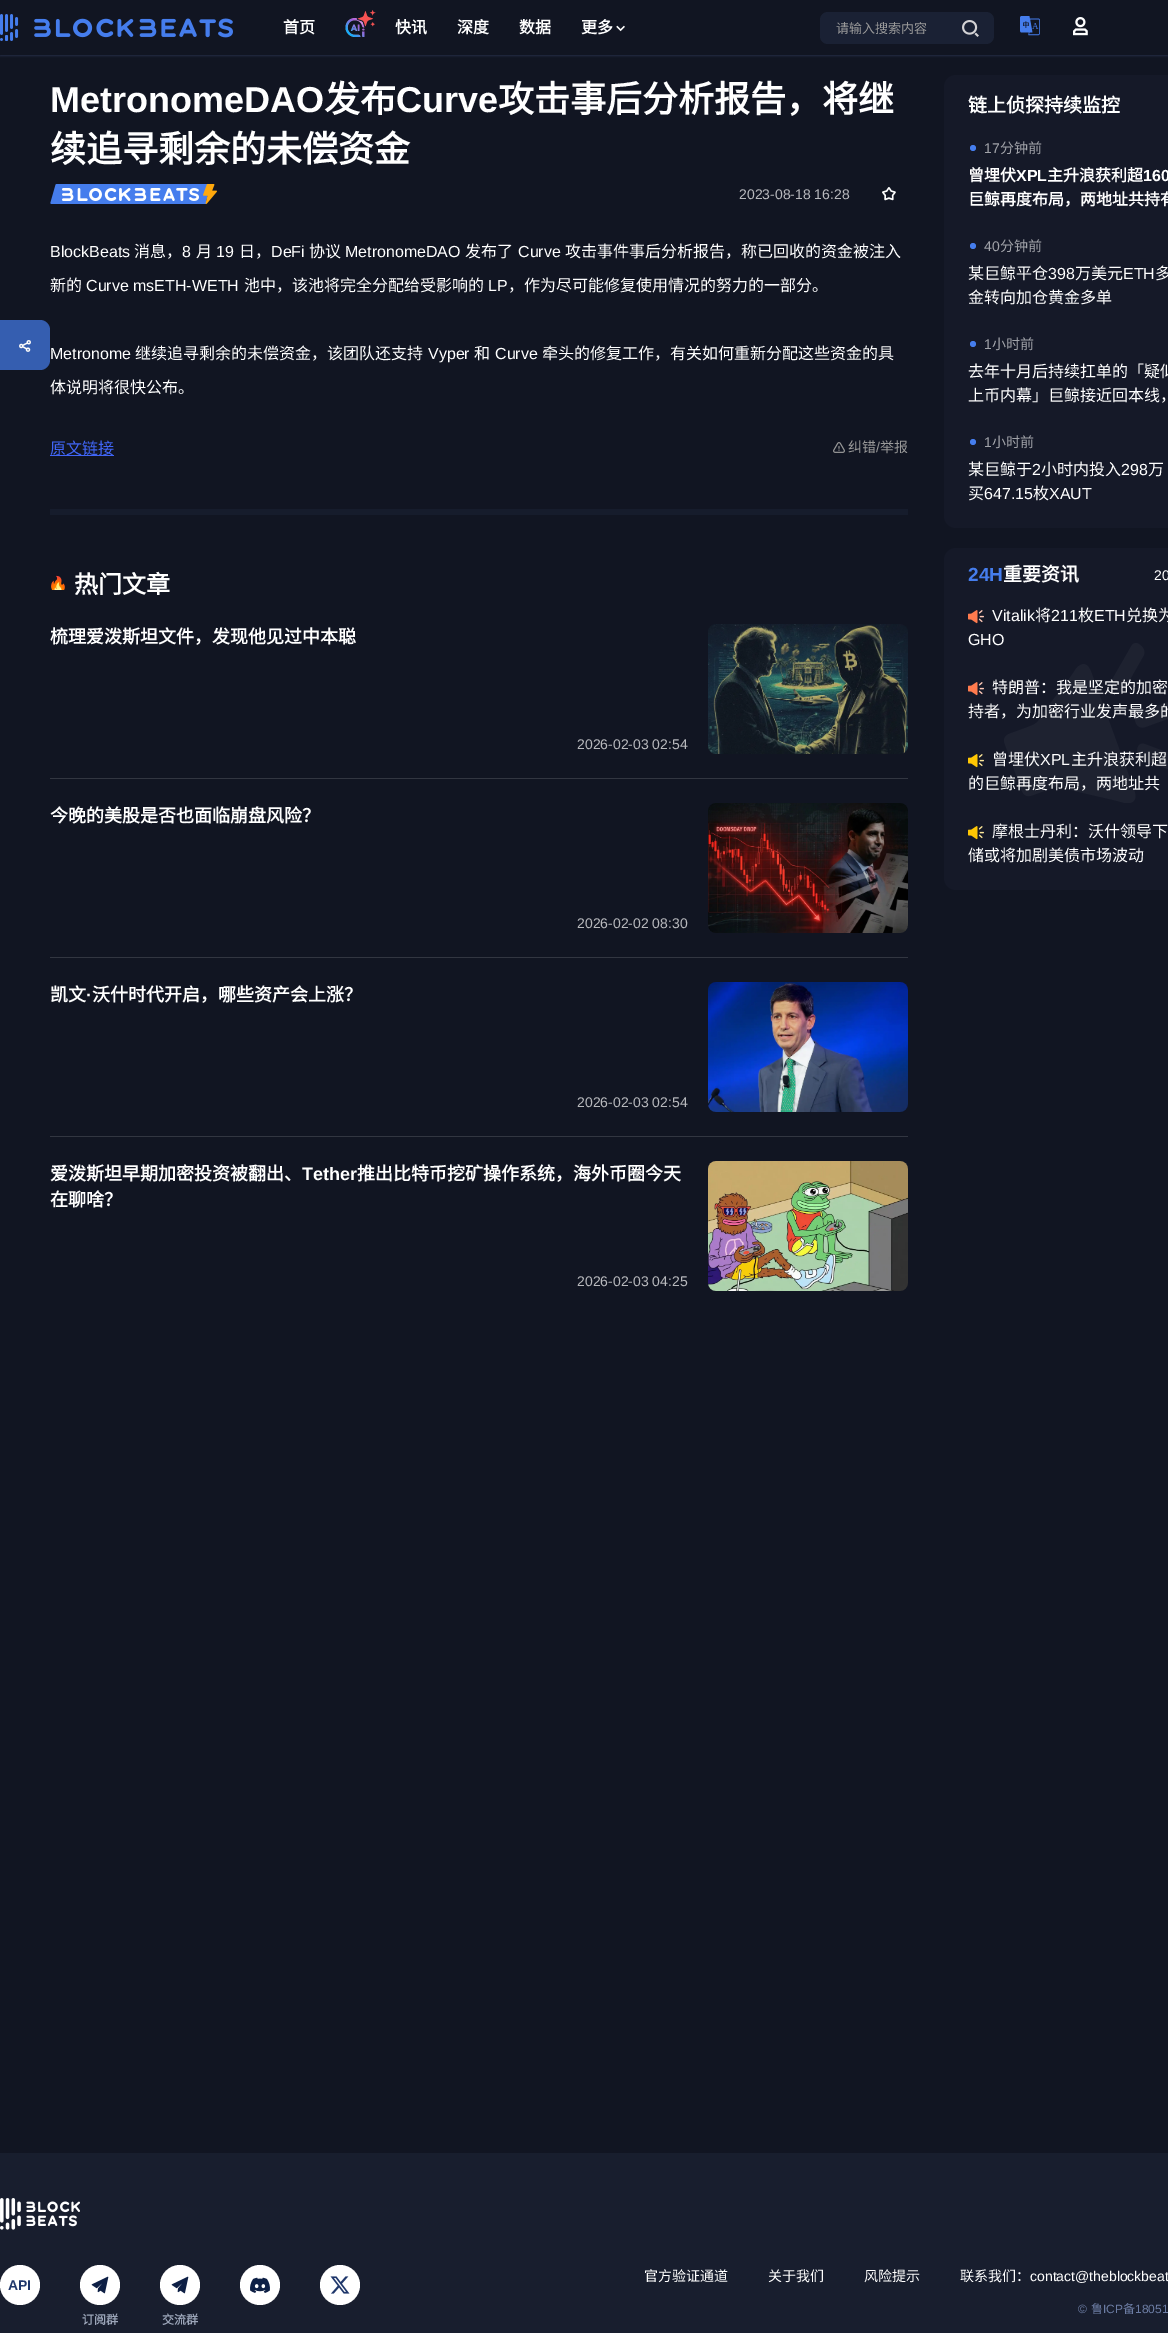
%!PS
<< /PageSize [1168 2333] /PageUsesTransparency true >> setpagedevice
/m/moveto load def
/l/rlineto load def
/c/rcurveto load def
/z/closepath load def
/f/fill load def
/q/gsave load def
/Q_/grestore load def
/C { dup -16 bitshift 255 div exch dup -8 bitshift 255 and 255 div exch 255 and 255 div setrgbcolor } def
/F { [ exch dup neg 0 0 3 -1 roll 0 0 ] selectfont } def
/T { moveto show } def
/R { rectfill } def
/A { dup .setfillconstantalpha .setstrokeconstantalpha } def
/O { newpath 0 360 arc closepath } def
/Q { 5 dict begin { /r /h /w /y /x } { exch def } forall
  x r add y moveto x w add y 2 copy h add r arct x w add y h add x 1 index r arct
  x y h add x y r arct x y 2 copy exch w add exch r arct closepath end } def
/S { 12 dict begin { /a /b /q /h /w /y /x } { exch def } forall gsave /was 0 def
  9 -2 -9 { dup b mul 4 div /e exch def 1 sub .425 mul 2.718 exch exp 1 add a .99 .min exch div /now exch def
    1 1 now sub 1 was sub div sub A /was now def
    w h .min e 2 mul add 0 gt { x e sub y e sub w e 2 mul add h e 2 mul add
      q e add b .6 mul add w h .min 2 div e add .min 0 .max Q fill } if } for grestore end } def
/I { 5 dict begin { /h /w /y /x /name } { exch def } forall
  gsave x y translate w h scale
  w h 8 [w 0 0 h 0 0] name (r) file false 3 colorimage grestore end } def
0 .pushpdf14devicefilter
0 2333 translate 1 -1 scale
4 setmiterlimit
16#111522 C
0 0 1168 2333 R
q
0 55 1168 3 rectclip
16#232C44 C
0 1 1168 55 0 1 1 S
Q_
(1.rgb) 0 14 233 27 I
/NotoSansCJKSC-Bold 16 F
16#FFFFFF C
(首页) 283 33 T
(2.rgb) 345 18 20 19 I
(3.rgb) 356 10 20 18 I
(快讯) 395 33 T
(深度) 457 33 T
(数据) 519 33 T
(更多) 581 33 T
(4.rgb) 616 25 9 7 I
16#1A2134 C
820 12 174 32 8 Q f
/NotoSansCJKSC-Regular 13 F
16#999999 C
(请输入搜索内容) 836 33 T
(5.rgb) 962 20 17 17 I
(6.rgb) 1020 16 20 20 I
(7.rgb) 1073 17 15 19 I
16#355EB0 C
0 320 m 40 0 l 5.5 0 10 4.5 10 10 c 0 30 l 0 5.5 -4.5 10 -10 10 c -40 0 l z f
(8.rgb) 19 340 12 12 I
16#161C2C C
50 509 858 6 R
/LiberationSans-Bold 36 F
16#FFFFFF C
(MetronomeDAO) 50 112 T
/NotoSansCJKSC-Bold 36 F
(发布) 324 112 T
/LiberationSans-Bold 36 F
(Curve) 396 112 T
/NotoSansCJKSC-Bold 36 F
(攻击事后分析报告，将继) 498 112 T
(续追寻剩余的未偿资金) 50 162 T
(9.rgb) 50 184 167 20 I
/LiberationSans-Regular 14 F
16#B8B9BD C
(2023-08-18 16:28) 739 199 T
(10.rgb) 882 187 14 14 I
/LiberationSans-Regular 16 F
16#FFFFFF C
(BlockBeats) 50 257 T
/NotoSansCJKSC-Regular 16 F
(消息，) 134 257 T
/LiberationSans-Regular 16 F
(8) 182 257 T
/NotoSansCJKSC-Regular 16 F
(月) 196 257 T
/LiberationSans-Regular 16 F
(19) 216 257 T
/NotoSansCJKSC-Regular 16 F
(日，) 239 257 T
/LiberationSans-Regular 16 F
(DeFi) 271 257 T
/NotoSansCJKSC-Regular 16 F
(协议) 309 257 T
/LiberationSans-Regular 16 F
(MetronomeDAO) 345 257 T
/NotoSansCJKSC-Regular 16 F
(发布了) 465 257 T
/LiberationSans-Regular 16 F
(Curve) 518 257 T
/NotoSansCJKSC-Regular 16 F
(攻击事件事后分析报告，称已回收的资金被注入) 565 257 T
(新的) 50 291 T
/LiberationSans-Regular 16 F
(Curve msETH-WETH) 86 291 T
/NotoSansCJKSC-Regular 16 F
(池中，该池将完全分配给受影响的) 244 291 T
/LiberationSans-Regular 16 F
(LP) 488 291 T
/NotoSansCJKSC-Regular 16 F
(，作为尽可能修复使用情况的努力的一部分。) 508 291 T
/LiberationSans-Regular 16 F
(Metronome) 50 359 T
/NotoSansCJKSC-Regular 16 F
(继续追寻剩余的未偿资金，该团队还支持) 135 359 T
/LiberationSans-Regular 16 F
(Vyper) 428 359 T
/NotoSansCJKSC-Regular 16 F
(和) 474 359 T
/LiberationSans-Regular 16 F
(Curve) 495 359 T
/NotoSansCJKSC-Regular 16 F
(牵头的修复工作，有关如何重新分配这些资金的具) 542 359 T
(体说明将很快公布。) 50 393 T
16#4065F6 C
50 455 64 1 R
(原文链接) 50 454 T
(11.rgb) 833 442 12 11 I
/NotoSansCJKSC-Regular 14 F
16#999999 C
(纠错) 848 452 T
/LiberationSans-Regular 14 F
(/) 876 452 T
/NotoSansCJKSC-Regular 14 F
(举报) 880 452 T
(12.rgb) 51 575 14 15 I
/NotoSansCJKSC-Bold 24 F
16#FFFFFF C
(热门文章) 74 593 T
16#323641 C
50 778 858 1 R
/NotoSansCJKSC-Bold 18 F
16#FFFFFF C
(梳理爱泼斯坦文件，发现他见过中本聪) 50 643 T
/LiberationSans-Regular 14 F
16#B8B9BD C
(2026-02-03 02:54) 577 749 T
(13.rgb) 708 624 200 130 I
16#323641 C
50 957 858 1 R
/NotoSansCJKSC-Bold 18 F
16#FFFFFF C
(今晚的美股是否也面临崩盘风险？) 50 822 T
/LiberationSans-Regular 14 F
16#B8B9BD C
(2026-02-02 08:30) 577 928 T
(14.rgb) 708 803 200 130 I
16#323641 C
50 1136 858 1 R
/NotoSansCJKSC-Bold 18 F
16#FFFFFF C
(凯文) 50 1001 T
/LiberationSans-Bold 18 F
(·) 86 1001 T
/NotoSansCJKSC-Bold 18 F
(沃什时代开启，哪些资产会上涨？) 92 1001 T
/LiberationSans-Regular 14 F
16#B8B9BD C
(2026-02-03 02:54) 577 1107 T
(15.rgb) 708 982 200 130 I
/NotoSansCJKSC-Bold 18 F
16#FFFFFF C
(爱泼斯坦早期加密投资被翻出、) 50 1180 T
/LiberationSans-Bold 18 F
(Tether) 302 1180 T
/NotoSansCJKSC-Bold 18 F
(推出比特币挖矿操作系统，海外币圈今天) 357 1180 T
(在聊啥？) 50 1206 T
/LiberationSans-Regular 14 F
16#B8B9BD C
(2026-02-03 04:25) 577 1286 T
(16.rgb) 708 1161 200 130 I
16#151928 C
944 75 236 453 12 Q f
/NotoSansCJKSC-Bold 19 F
16#FFFFFF C
(链上侦探持续监控) 968 112 T
16#457DED C
973 148 3 O f
/LiberationSans-Regular 14 F
16#A1A3A9 C
(17) 984 153 T
/NotoSansCJKSC-Regular 14 F
(分钟前) 1000 153 T
/NotoSansCJKSC-Bold 16 F
16#FFFFFF C
(曾埋伏) 968 181 T
/LiberationSans-Bold 16 F
(XPL) 1016 181 T
/NotoSansCJKSC-Bold 16 F
(主升浪获利超) 1047 181 T
/LiberationSans-Bold 16 F
(160) 1143 181 T
/NotoSansCJKSC-Bold 16 F
(巨鲸再度布局，两地址共持有) 968 205 T
16#457DED C
973 246 3 O f
/LiberationSans-Regular 14 F
16#A1A3A9 C
(40) 984 251 T
/NotoSansCJKSC-Regular 14 F
(分钟前) 1000 251 T
/NotoSansCJKSC-Regular 16 F
16#FFFFFF C
(某巨鲸平仓) 968 279 T
/LiberationSans-Regular 16 F
(398) 1048 279 T
/NotoSansCJKSC-Regular 16 F
(万美元) 1075 279 T
/LiberationSans-Regular 16 F
(ETH) 1123 279 T
/NotoSansCJKSC-Regular 16 F
(多) 1155 279 T
(金转向加仓黄金多单) 968 303 T
16#457DED C
973 344 3 O f
/LiberationSans-Regular 14 F
16#A1A3A9 C
(1) 984 349 T
/NotoSansCJKSC-Regular 14 F
(小时前) 992 349 T
/NotoSansCJKSC-Regular 16 F
16#FFFFFF C
(去年十月后持续扛单的「疑似) 968 377 T
(上币内幕」巨鲸接近回本线，) 968 401 T
16#457DED C
973 442 3 O f
/LiberationSans-Regular 14 F
16#A1A3A9 C
(1) 984 447 T
/NotoSansCJKSC-Regular 14 F
(小时前) 992 447 T
/NotoSansCJKSC-Regular 16 F
16#FFFFFF C
(某巨鲸于) 968 475 T
/LiberationSans-Regular 16 F
(2) 1032 475 T
/NotoSansCJKSC-Regular 16 F
(小时内投入) 1041 475 T
/LiberationSans-Regular 16 F
(298) 1121 475 T
/NotoSansCJKSC-Regular 16 F
(万) 1148 475 T
(买) 968 499 T
/LiberationSans-Regular 16 F
(647.15) 984 499 T
/NotoSansCJKSC-Regular 16 F
(枚) 1033 499 T
/LiberationSans-Regular 16 F
(XAUT) 1049 499 T
16#151928 C
944 548 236 342 12 Q f
/LiberationSans-Bold 19 F
16#457DED C
(24H) 968 581 T
/NotoSansCJKSC-Bold 19 F
16#FFFFFF C
(重要资讯) 1003 581 T
/LiberationSans-Regular 14 F
(20) 1154 580 T
(17.rgb) 968 610 16 14 I
/LiberationSans-Regular 16 F
(Vitalik) 992 621 T
/NotoSansCJKSC-Regular 16 F
(将) 1035 621 T
/LiberationSans-Regular 16 F
(211) 1051 621 T
/NotoSansCJKSC-Regular 16 F
(枚) 1078 621 T
/LiberationSans-Regular 16 F
(ETH) 1094 621 T
/NotoSansCJKSC-Regular 16 F
(兑换为) 1126 621 T
/LiberationSans-Regular 16 F
(GHO) 968 645 T
(18.rgb) 1004 643 164 160 I
(17.rgb) 968 682 16 14 I
/NotoSansCJKSC-Regular 16 F
(特朗普：我是坚定的加密) 992 693 T
(持者，为加密行业发声最多的) 968 717 T
(19.rgb) 968 754 16 14 I
(曾埋伏) 992 765 T
/LiberationSans-Regular 16 F
(XPL) 1040 765 T
/NotoSansCJKSC-Regular 16 F
(主升浪获利超) 1071 765 T
(的巨鲸再度布局，两地址共) 968 789 T
(19.rgb) 968 826 16 14 I
(摩根士丹利：沃什领导下) 992 837 T
(储或将加剧美债市场波动) 968 861 T
16#181E2E C
0 2153 1168 180 R
(20.rgb) 0 2198 80 32 I
16#FFFFFF C
20 2285 20 O f
/LiberationSans-Bold 14 F
16#1F376B C
(API) 8 2290 T
16#FFFFFF C
260 2285 20 O f
(21.rgb) 250 2277 20 16 I
340 2285 20 O f
(22.rgb) 330 2276 20 18 I
100 2285 20 O f
(23.rgb) 91 2276 18 18 I
/NotoSansCJKSC-Bold 12 F
16#9CA6B9 C
(订阅群) 82 2324 T
16#FFFFFF C
180 2285 20 O f
(23.rgb) 171 2276 18 18 I
16#9CA6B9 C
(交流群) 162 2324 T
/NotoSansCJKSC-Regular 14 F
16#FFFFFF C
(官方验证通道) 644 2281 T
(关于我们) 768 2281 T
(风险提示) 864 2281 T
(联系我们：) 960 2281 T
/LiberationSans-Regular 14 F
(contact@theblockbeat) 1030 2281 T
/LiberationSans-Regular 12 F
16#6C7DA4 C
(©) 1078 2313 T
/NotoSansCJKSC-Regular 12 F
(鲁) 1091 2313 T
/LiberationSans-Regular 12 F
(ICP) 1103 2313 T
/NotoSansCJKSC-Regular 12 F
(备) 1123 2313 T
/LiberationSans-Regular 12 F
(18051) 1135 2313 T
.poppdf14devicefilter showpage
